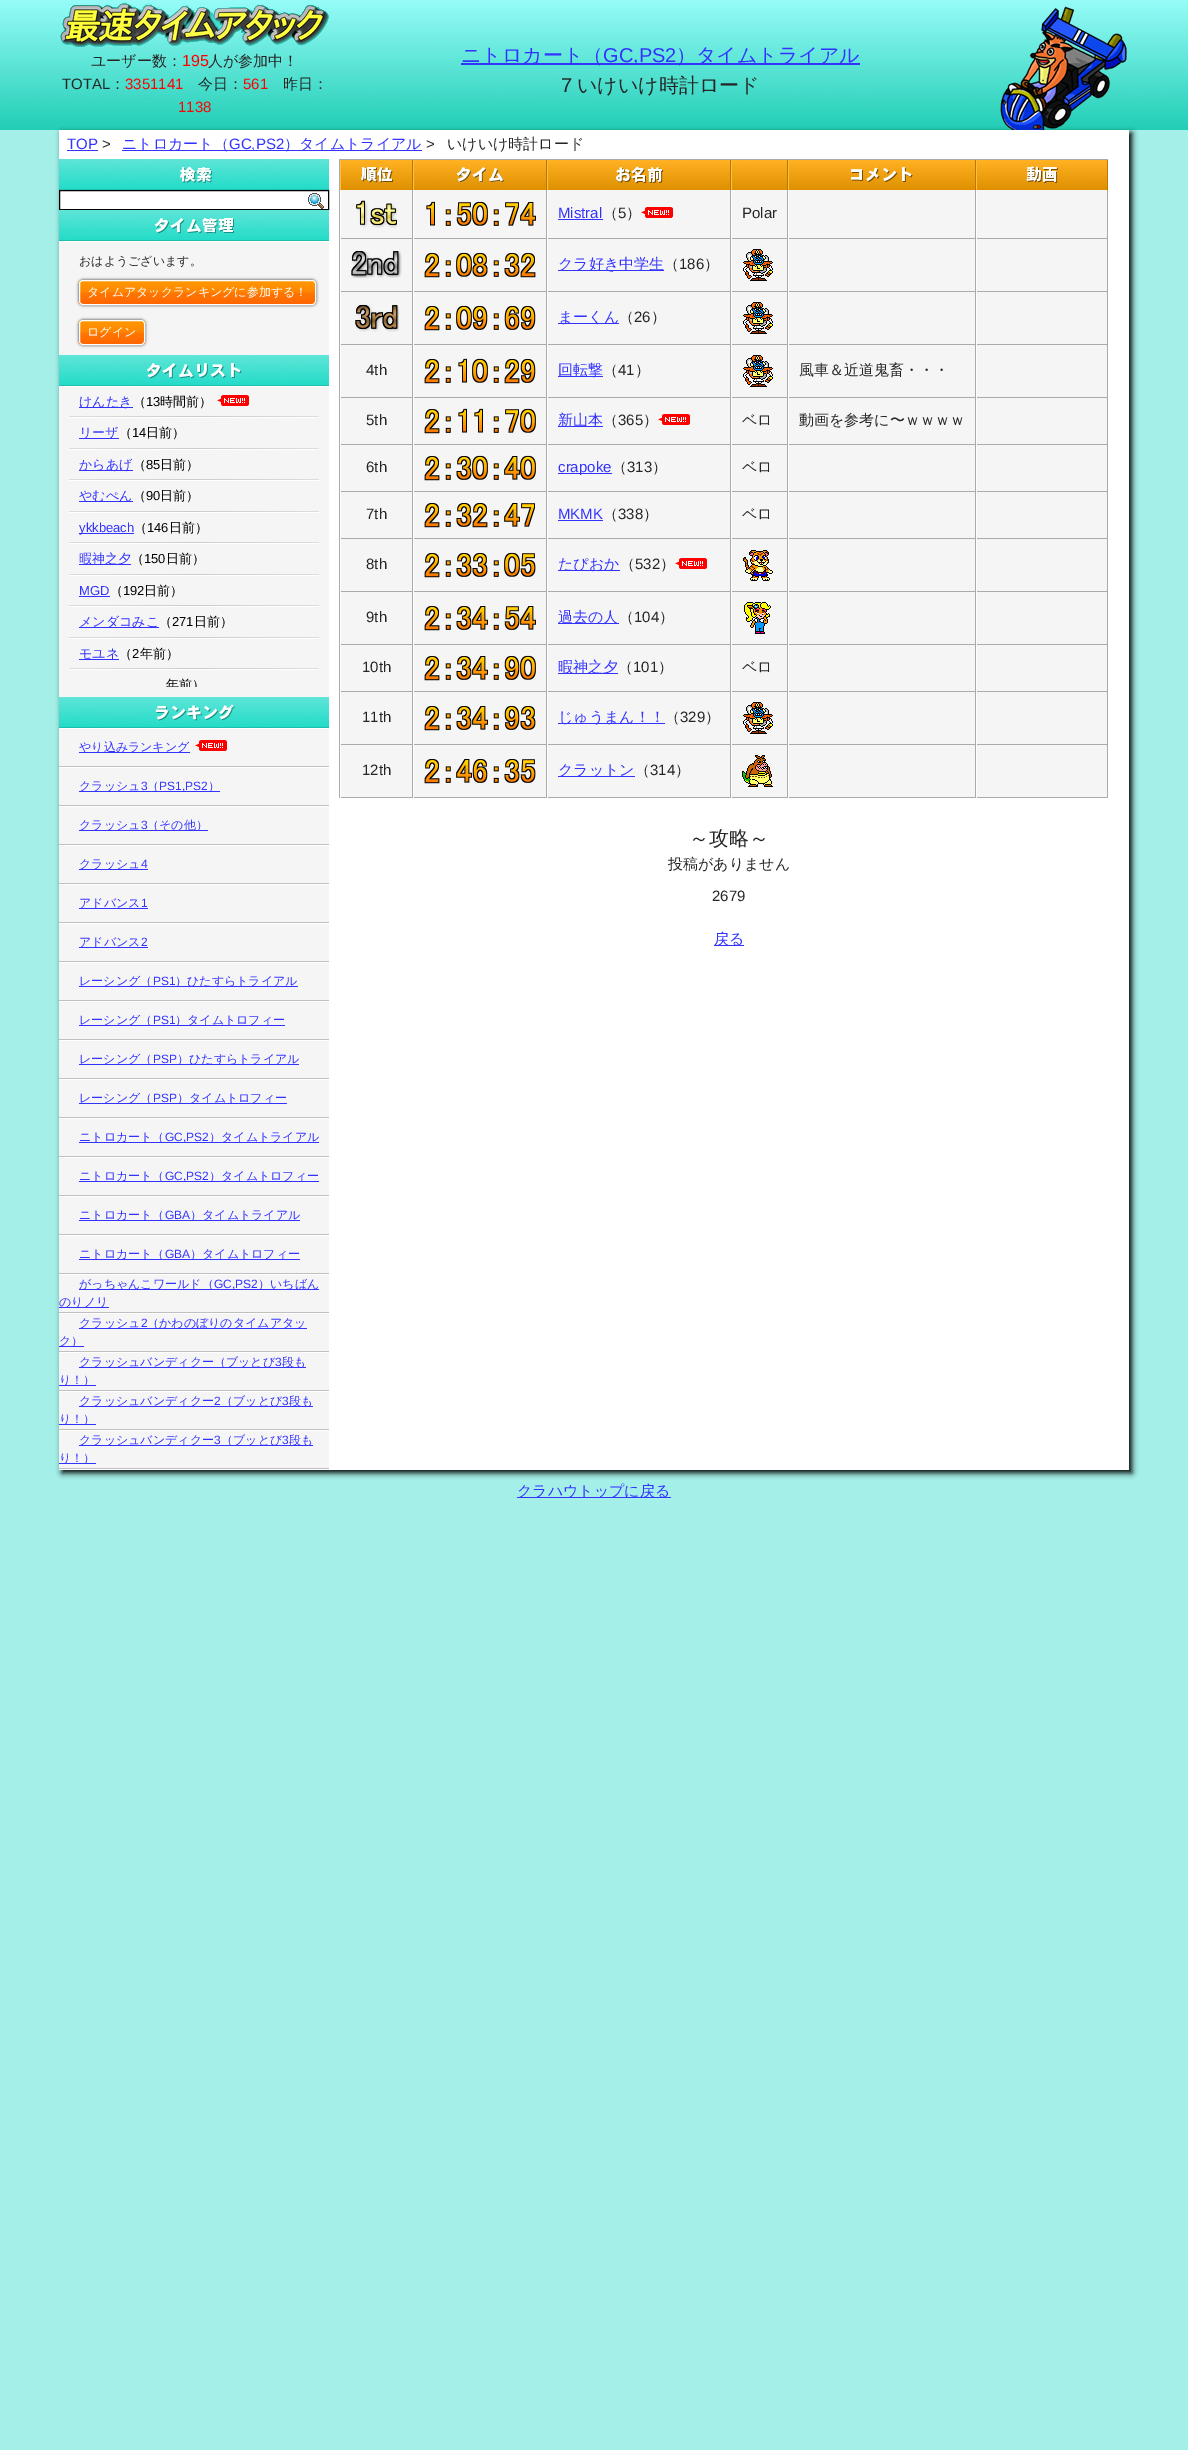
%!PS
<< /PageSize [1188 2450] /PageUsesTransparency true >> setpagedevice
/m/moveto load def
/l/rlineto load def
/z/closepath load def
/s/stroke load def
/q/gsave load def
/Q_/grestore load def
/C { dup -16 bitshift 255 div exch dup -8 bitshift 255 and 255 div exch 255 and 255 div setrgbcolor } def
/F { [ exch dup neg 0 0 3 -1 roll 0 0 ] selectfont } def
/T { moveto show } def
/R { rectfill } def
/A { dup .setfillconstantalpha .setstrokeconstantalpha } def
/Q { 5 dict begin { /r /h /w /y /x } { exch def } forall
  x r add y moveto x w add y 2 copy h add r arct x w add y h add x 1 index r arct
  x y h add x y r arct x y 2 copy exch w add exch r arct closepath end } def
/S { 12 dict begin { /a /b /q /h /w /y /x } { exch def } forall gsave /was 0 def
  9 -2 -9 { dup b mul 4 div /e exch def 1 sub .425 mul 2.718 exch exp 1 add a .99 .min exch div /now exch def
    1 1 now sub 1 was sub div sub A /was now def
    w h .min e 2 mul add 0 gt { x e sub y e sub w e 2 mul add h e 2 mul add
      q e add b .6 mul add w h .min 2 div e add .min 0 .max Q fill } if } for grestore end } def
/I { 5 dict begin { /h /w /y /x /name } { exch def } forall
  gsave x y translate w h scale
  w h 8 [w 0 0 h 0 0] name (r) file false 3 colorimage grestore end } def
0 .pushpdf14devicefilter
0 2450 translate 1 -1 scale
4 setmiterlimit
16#A4F0E9 C
0 0 1188 2450 R
(1.rgb) 0 0 1188 130 I
(2.rgb) 60 2 269 45 I
/WenQuanYiZenHei-Medium 15 F
16#252525 C
(ユーザー数：) 91 66 T
/LiberationSans-Regular 16 F
16#FF0000 C
(195) 182 66 T
/WenQuanYiZenHei-Medium 15 F
16#252525 C
(人が参加中！) 208 66 T
/LiberationSans-Regular 15 F
(TOTAL) 62 89 T
/WenQuanYiZenHei-Medium 15 F
(：) 110 89 T
/LiberationSans-Regular 15 F
16#FF0000 C
(3351141) 125 89 T
/WenQuanYiZenHei-Medium 15 F
16#252525 C
(今日：) 198 89 T
/LiberationSans-Regular 15 F
16#FF0000 C
(561) 243 89 T
/WenQuanYiZenHei-Medium 15 F
16#252525 C
(昨日：) 283 89 T
/LiberationSans-Regular 15 F
16#FF0000 C
(1138) 178 112 T
16#3333FF C
461 63 399 2 R
/WenQuanYiZenHei-Medium 20 F
(ニトロカート（) 461 62 T
/LiberationSans-Regular 20 F
(GC,PS2) 603 62 T
/WenQuanYiZenHei-Medium 20 F
(）タイムトライアル) 676 62 T
/LiberationSans-Regular 20 F
16#252525 C
(7) 561 92 T
/WenQuanYiZenHei-Medium 20 F
(いけいけ時計ロード) 577 92 T
(3.rgb) 1000 6 127 124 I
16#000000 C
62 133 1070 1340 0 3 1 S
16#FFFFFF C
59 130 1070 1340 R
/LiberationSans-Regular 15 F
16#3333FF C
(TOP) 67 149 T
67 150 31 1 R
16#252525 C
(>) 102 149 T
16#3333FF C
122 150 300 1 R
/WenQuanYiZenHei-Medium 15 F
(ニトロカート（) 122 149 T
/LiberationSans-Regular 15 F
(GC,PS2) 229 149 T
/WenQuanYiZenHei-Medium 15 F
(）タイムトライアル) 284 149 T
/LiberationSans-Regular 15 F
16#252525 C
(>) 426 149 T
/WenQuanYiZenHei-Medium 15 F
(いけいけ時計ロード) 447 149 T
16#F5F5F5 C
59 242 270 1226 R
(4.rgb) 59 159 270 30 I
16#1FBDAD C
59 189 270 1 R
16#000000 C
59.5 190.5 269 19 rectstroke
(5.rgb) 308 193 16 16 I
(6.rgb) 59 210 270 30 I
16#1FBDAD C
59 240 270 1 R
/WenQuanYiZenHei-Medium 12 F
16#252525 C
(おはようございます。) 79 265 T
16#333333 C
79 280 237 25 4 1.5 1 S
q
79 280 237 25 4 Q clip newpath
q 79 281 m 237 0 l 0 23 l -237 0 l z clip newpath
<< /ShadingType 2 /ColorSpace /DeviceRGB /Coords [198 281 198 304] /Extend [true true] /Function << /FunctionType 3 /Domain [0 1] /Functions [<< /FunctionType 2 /Domain [0 1] /C0 [1 .6 0] /C1 [1 .525 0] /N 1 >> << /FunctionType 2 /Domain [0 1] /C0 [1 .525 0] /C1 [1 .467 0] /N 1 >> << /FunctionType 2 /Domain [0 1] /C0 [1 .467 0] /C1 [1 .4 0] /N 1 >>] /Bounds [.48 .52] /Encode [0 1 0 1 0 1] >> >> shfill Q_
Q_
16#FFFFFF C
79.5 280.5 236 24 3.5 Q s
(タイムアタックランキングに参加する！) 87 296 T
16#333333 C
79 320 66 25 4 1.5 1 S
q
79 320 66 25 4 Q clip newpath
q 79 321 m 66 0 l 0 23 l -66 0 l z clip newpath
<< /ShadingType 2 /ColorSpace /DeviceRGB /Coords [112 321 112 344] /Extend [true true] /Function << /FunctionType 3 /Domain [0 1] /Functions [<< /FunctionType 2 /Domain [0 1] /C0 [1 .6 0] /C1 [1 .525 0] /N 1 >> << /FunctionType 2 /Domain [0 1] /C0 [1 .525 0] /C1 [1 .467 0] /N 1 >> << /FunctionType 2 /Domain [0 1] /C0 [1 .467 0] /C1 [1 .4 0] /N 1 >>] /Bounds [.48 .52] /Encode [0 1 0 1 0 1] >> >> shfill Q_
Q_
16#FFFFFF C
79.5 320.5 65 24 3.5 Q s
(ログイン) 87 336 T
(7.rgb) 59 355 270 30 I
16#1FBDAD C
59 385 270 1 R
16#FFFFFF C
59 386 270 1 R
16#3333FF C
79 407 54 1 R
/WenQuanYiZenHei-Medium 13 F
(けんたき) 79 406 T
16#000000 C
(（) 133 406 T
/LiberationSans-Regular 13 F
(13) 146 406 T
/WenQuanYiZenHei-Medium 13 F
(時間前）) 160 406 T
(8.rgb) 217 395 32 11 I
q 69 416 m 250 0 l 0 1 l -250 0 l z clip newpath
<< /ShadingType 2 /ColorSpace /DeviceRGB /Coords [69 417 319 417] /Extend [true true] /Function << /FunctionType 3 /Domain [0 1] /Functions [<< /FunctionType 2 /Domain [0 1] /C0 [.867 .867 .867] /C1 [.8 .8 .8] /N 1 >> << /FunctionType 2 /Domain [0 1] /C0 [.8 .8 .8] /C1 [.867 .867 .867] /N 1 >>] /Bounds [.5] /Encode [0 1 0 1] >> >> shfill Q_
16#FFFFFF C
69 417 250 1 R
16#3333FF C
79 438 40 1 R
(リーザ) 79 437 T
16#000000 C
(（) 119 437 T
/LiberationSans-Regular 13 F
(14) 132 437 T
/WenQuanYiZenHei-Medium 13 F
(日前）) 146 437 T
q 69 448 m 250 0 l 0 1 l -250 0 l z clip newpath
<< /ShadingType 2 /ColorSpace /DeviceRGB /Coords [69 449 319 449] /Extend [true true] /Function << /FunctionType 3 /Domain [0 1] /Functions [<< /FunctionType 2 /Domain [0 1] /C0 [.867 .867 .867] /C1 [.8 .8 .8] /N 1 >> << /FunctionType 2 /Domain [0 1] /C0 [.8 .8 .8] /C1 [.867 .867 .867] /N 1 >>] /Bounds [.5] /Encode [0 1 0 1] >> >> shfill Q_
16#FFFFFF C
69 449 250 1 R
16#3333FF C
79 470 54 1 R
(からあげ) 79 469 T
16#000000 C
(（) 133 469 T
/LiberationSans-Regular 13 F
(85) 146 469 T
/WenQuanYiZenHei-Medium 13 F
(日前）) 160 469 T
q 69 479 m 250 0 l 0 1 l -250 0 l z clip newpath
<< /ShadingType 2 /ColorSpace /DeviceRGB /Coords [69 480 319 480] /Extend [true true] /Function << /FunctionType 3 /Domain [0 1] /Functions [<< /FunctionType 2 /Domain [0 1] /C0 [.867 .867 .867] /C1 [.8 .8 .8] /N 1 >> << /FunctionType 2 /Domain [0 1] /C0 [.8 .8 .8] /C1 [.867 .867 .867] /N 1 >>] /Bounds [.5] /Encode [0 1 0 1] >> >> shfill Q_
16#FFFFFF C
69 480 250 1 R
16#3333FF C
79 501 54 1 R
(やむぺん) 79 500 T
16#000000 C
(（) 133 500 T
/LiberationSans-Regular 13 F
(90) 146 500 T
/WenQuanYiZenHei-Medium 13 F
(日前）) 160 500 T
q 69 511 m 250 0 l 0 1 l -250 0 l z clip newpath
<< /ShadingType 2 /ColorSpace /DeviceRGB /Coords [69 512 319 512] /Extend [true true] /Function << /FunctionType 3 /Domain [0 1] /Functions [<< /FunctionType 2 /Domain [0 1] /C0 [.867 .867 .867] /C1 [.8 .8 .8] /N 1 >> << /FunctionType 2 /Domain [0 1] /C0 [.8 .8 .8] /C1 [.867 .867 .867] /N 1 >>] /Bounds [.5] /Encode [0 1 0 1] >> >> shfill Q_
16#FFFFFF C
69 512 250 1 R
16#3333FF C
79 533 55 1 R
/LiberationSans-Regular 13 F
(ykkbeach) 79 532 T
/WenQuanYiZenHei-Medium 13 F
16#000000 C
(（) 134 532 T
/LiberationSans-Regular 13 F
(146) 147 532 T
/WenQuanYiZenHei-Medium 13 F
(日前）) 169 532 T
q 69 542 m 250 0 l 0 1 l -250 0 l z clip newpath
<< /ShadingType 2 /ColorSpace /DeviceRGB /Coords [69 543 319 543] /Extend [true true] /Function << /FunctionType 3 /Domain [0 1] /Functions [<< /FunctionType 2 /Domain [0 1] /C0 [.867 .867 .867] /C1 [.8 .8 .8] /N 1 >> << /FunctionType 2 /Domain [0 1] /C0 [.8 .8 .8] /C1 [.867 .867 .867] /N 1 >>] /Bounds [.5] /Encode [0 1 0 1] >> >> shfill Q_
16#FFFFFF C
69 543 250 1 R
16#3333FF C
79 564 52 1 R
(暇神之夕) 79 563 T
16#000000 C
(（) 131 563 T
/LiberationSans-Regular 13 F
(150) 144 563 T
/WenQuanYiZenHei-Medium 13 F
(日前）) 166 563 T
q 69 574 m 250 0 l 0 1 l -250 0 l z clip newpath
<< /ShadingType 2 /ColorSpace /DeviceRGB /Coords [69 575 319 575] /Extend [true true] /Function << /FunctionType 3 /Domain [0 1] /Functions [<< /FunctionType 2 /Domain [0 1] /C0 [.867 .867 .867] /C1 [.8 .8 .8] /N 1 >> << /FunctionType 2 /Domain [0 1] /C0 [.8 .8 .8] /C1 [.867 .867 .867] /N 1 >>] /Bounds [.5] /Encode [0 1 0 1] >> >> shfill Q_
16#FFFFFF C
69 575 250 1 R
/LiberationSans-Regular 13 F
16#3333FF C
(MGD) 79 595 T
79 596 31 1 R
/WenQuanYiZenHei-Medium 13 F
16#000000 C
(（) 110 595 T
/LiberationSans-Regular 13 F
(192) 123 595 T
/WenQuanYiZenHei-Medium 13 F
(日前）) 144 595 T
q 69 605 m 250 0 l 0 1 l -250 0 l z clip newpath
<< /ShadingType 2 /ColorSpace /DeviceRGB /Coords [69 606 319 606] /Extend [true true] /Function << /FunctionType 3 /Domain [0 1] /Functions [<< /FunctionType 2 /Domain [0 1] /C0 [.867 .867 .867] /C1 [.8 .8 .8] /N 1 >> << /FunctionType 2 /Domain [0 1] /C0 [.8 .8 .8] /C1 [.867 .867 .867] /N 1 >>] /Bounds [.5] /Encode [0 1 0 1] >> >> shfill Q_
16#FFFFFF C
69 606 250 1 R
16#3333FF C
79 627 80 1 R
(メンダコみこ) 79 626 T
16#000000 C
(（) 159 626 T
/LiberationSans-Regular 13 F
(271) 172 626 T
/WenQuanYiZenHei-Medium 13 F
(日前）) 194 626 T
q 69 637 m 250 0 l 0 1 l -250 0 l z clip newpath
<< /ShadingType 2 /ColorSpace /DeviceRGB /Coords [69 638 319 638] /Extend [true true] /Function << /FunctionType 3 /Domain [0 1] /Functions [<< /FunctionType 2 /Domain [0 1] /C0 [.867 .867 .867] /C1 [.8 .8 .8] /N 1 >> << /FunctionType 2 /Domain [0 1] /C0 [.8 .8 .8] /C1 [.867 .867 .867] /N 1 >>] /Bounds [.5] /Encode [0 1 0 1] >> >> shfill Q_
16#FFFFFF C
69 638 250 1 R
16#3333FF C
79 659 40 1 R
(モユネ) 79 658 T
16#000000 C
(（) 119 658 T
/LiberationSans-Regular 13 F
(2) 132 658 T
/WenQuanYiZenHei-Medium 13 F
(年前）) 140 658 T
q 69 668 m 250 0 l 0 1 l -250 0 l z clip newpath
<< /ShadingType 2 /ColorSpace /DeviceRGB /Coords [69 669 319 669] /Extend [true true] /Function << /FunctionType 3 /Domain [0 1] /Functions [<< /FunctionType 2 /Domain [0 1] /C0 [.867 .867 .867] /C1 [.8 .8 .8] /N 1 >> << /FunctionType 2 /Domain [0 1] /C0 [.8 .8 .8] /C1 [.867 .867 .867] /N 1 >>] /Bounds [.5] /Encode [0 1 0 1] >> >> shfill Q_
16#FFFFFF C
69 669 250 1 R
q
59 387 270 300 rectclip
16#000000 C
(年前）) 166 689 T
Q_
(9.rgb) 59 697 270 30 I
16#1FBDAD C
59 727 270 1 R
16#FFFFFF C
59 728 270 1 R
16#BFBFBF C
59 766 270 1 R
16#3333FF C
79 752 111 1 R
/WenQuanYiZenHei-Medium 12 F
(やり込みランキング) 79 751 T
(8.rgb) 195 740 32 11 I
16#FFFFFF C
59 767 270 1 R
16#BFBFBF C
59 805 270 1 R
16#3333FF C
79 791 141 1 R
(クラッシュ) 79 790 T
/LiberationSans-Regular 12 F
(3) 141 790 T
/WenQuanYiZenHei-Medium 12 F
(（) 147 790 T
/LiberationSans-Regular 12 F
(PS1,PS2) 159 790 T
/WenQuanYiZenHei-Medium 12 F
(）) 208 790 T
16#FFFFFF C
59 806 270 1 R
16#BFBFBF C
59 844 270 1 R
16#3333FF C
79 830 129 1 R
(クラッシュ) 79 829 T
/LiberationSans-Regular 12 F
(3) 141 829 T
/WenQuanYiZenHei-Medium 12 F
(（その他）) 147 829 T
16#FFFFFF C
59 845 270 1 R
16#BFBFBF C
59 883 270 1 R
16#3333FF C
79 869 69 1 R
(クラッシュ) 79 868 T
/LiberationSans-Regular 12 F
(4) 141 868 T
16#FFFFFF C
59 884 270 1 R
16#BFBFBF C
59 922 270 1 R
16#3333FF C
79 908 69 1 R
/WenQuanYiZenHei-Medium 12 F
(アドバンス) 79 907 T
/LiberationSans-Regular 12 F
(1) 141 907 T
16#FFFFFF C
59 923 270 1 R
16#BFBFBF C
59 961 270 1 R
16#3333FF C
79 947 69 1 R
/WenQuanYiZenHei-Medium 12 F
(アドバンス) 79 946 T
/LiberationSans-Regular 12 F
(2) 141 946 T
16#FFFFFF C
59 962 270 1 R
16#BFBFBF C
59 1000 270 1 R
16#3333FF C
79 986 219 1 R
/WenQuanYiZenHei-Medium 12 F
(レーシング（) 79 985 T
/LiberationSans-Regular 12 F
(PS1) 153 985 T
/WenQuanYiZenHei-Medium 12 F
(）ひたすらトライアル) 175 985 T
16#FFFFFF C
59 1001 270 1 R
16#BFBFBF C
59 1039 270 1 R
16#3333FF C
79 1025 206 1 R
(レーシング（) 79 1024 T
/LiberationSans-Regular 12 F
(PS1) 153 1024 T
/WenQuanYiZenHei-Medium 12 F
(）タイムトロフィー) 175 1024 T
16#FFFFFF C
59 1040 270 1 R
16#BFBFBF C
59 1078 270 1 R
16#3333FF C
79 1064 220 1 R
(レーシング（) 79 1063 T
/LiberationSans-Regular 12 F
(PSP) 153 1063 T
/WenQuanYiZenHei-Medium 12 F
(）ひたすらトライアル) 177 1063 T
16#FFFFFF C
59 1079 270 1 R
16#BFBFBF C
59 1117 270 1 R
16#3333FF C
79 1103 208 1 R
(レーシング（) 79 1102 T
/LiberationSans-Regular 12 F
(PSP) 153 1102 T
/WenQuanYiZenHei-Medium 12 F
(）タイムトロフィー) 177 1102 T
16#FFFFFF C
59 1118 270 1 R
16#BFBFBF C
59 1156 270 1 R
16#3333FF C
79 1142 240 1 R
(ニトロカート（) 79 1141 T
/LiberationSans-Regular 12 F
(GC,PS2) 165 1141 T
/WenQuanYiZenHei-Medium 12 F
(）タイムトライアル) 209 1141 T
16#FFFFFF C
59 1157 270 1 R
16#BFBFBF C
59 1195 270 1 R
16#3333FF C
79 1181 240 1 R
(ニトロカート（) 79 1180 T
/LiberationSans-Regular 12 F
(GC,PS2) 165 1180 T
/WenQuanYiZenHei-Medium 12 F
(）タイムトロフィー) 209 1180 T
16#FFFFFF C
59 1196 270 1 R
16#BFBFBF C
59 1234 270 1 R
16#3333FF C
79 1220 221 1 R
(ニトロカート（) 79 1219 T
/LiberationSans-Regular 12 F
(GBA) 165 1219 T
/WenQuanYiZenHei-Medium 12 F
(）タイムトライアル) 190 1219 T
16#FFFFFF C
59 1235 270 1 R
16#BFBFBF C
59 1273 270 1 R
16#3333FF C
79 1259 221 1 R
(ニトロカート（) 79 1258 T
/LiberationSans-Regular 12 F
(GBA) 165 1258 T
/WenQuanYiZenHei-Medium 12 F
(）タイムトロフィー) 190 1258 T
16#FFFFFF C
59 1274 270 1 R
16#BFBFBF C
59 1312 270 1 R
16#3333FF C
79 1289 240 1 R
(がっちゃんこワールド（) 79 1288 T
/LiberationSans-Regular 12 F
(GC,PS2) 214 1288 T
/WenQuanYiZenHei-Medium 12 F
(）いちばん) 258 1288 T
59 1307 50 1 R
(のりノリ) 59 1306 T
16#FFFFFF C
59 1313 270 1 R
16#BFBFBF C
59 1351 270 1 R
16#3333FF C
79 1328 228 1 R
(クラッシュ) 79 1327 T
/LiberationSans-Regular 12 F
(2) 141 1327 T
/WenQuanYiZenHei-Medium 12 F
(（かわのぼりのタイムアタッ) 147 1327 T
59 1346 25 1 R
(ク）) 59 1345 T
16#FFFFFF C
59 1352 270 1 R
16#BFBFBF C
59 1390 270 1 R
16#3333FF C
79 1367 227 1 R
(クラッシュバンディクー（ブッとび) 79 1366 T
/LiberationSans-Regular 12 F
(3) 275 1366 T
/WenQuanYiZenHei-Medium 12 F
(段も) 282 1366 T
59 1385 37 1 R
(り！）) 59 1384 T
16#FFFFFF C
59 1391 270 1 R
16#BFBFBF C
59 1429 270 1 R
16#3333FF C
79 1406 234 1 R
(クラッシュバンディクー) 79 1405 T
/LiberationSans-Regular 12 F
(2) 214 1405 T
/WenQuanYiZenHei-Medium 12 F
(（ブッとび) 221 1405 T
/LiberationSans-Regular 12 F
(3) 282 1405 T
/WenQuanYiZenHei-Medium 12 F
(段も) 289 1405 T
59 1424 37 1 R
(り！）) 59 1423 T
16#FFFFFF C
59 1430 270 1 R
16#BFBFBF C
59 1468 270 1 R
16#3333FF C
79 1445 234 1 R
(クラッシュバンディクー) 79 1444 T
/LiberationSans-Regular 12 F
(3) 214 1444 T
/WenQuanYiZenHei-Medium 12 F
(（ブッとび) 221 1444 T
/LiberationSans-Regular 12 F
(3) 282 1444 T
/WenQuanYiZenHei-Medium 12 F
(段も) 289 1444 T
59 1463 37 1 R
(り！）) 59 1462 T
16#AAAAAA C
339 159 769 1 R
339 159 1 639 R
(10.rgb) 341 160 71 30 I
16#BB7900 C
412 160 1 30 R
16#FFBD44 C
340 160 1 30 R
(11.rgb) 361 167 32 16 I
(12.rgb) 414 160 132 30 I
16#BB7900 C
546 160 1 30 R
16#FFBD44 C
413 160 1 30 R
(13.rgb) 456 167 49 16 I
(14.rgb) 548 160 182 30 I
16#BB7900 C
730 160 1 30 R
16#FFBD44 C
547 160 1 30 R
(15.rgb) 616 166 47 18 I
(16.rgb) 732 160 55 30 I
16#BB7900 C
787 160 1 30 R
16#FFBD44 C
731 160 1 30 R
(17.rgb) 789 160 186 30 I
16#BB7900 C
975 160 1 30 R
16#FFBD44 C
788 160 1 30 R
(18.rgb) 851 167 62 16 I
(19.rgb) 977 160 130 30 I
16#BB7900 C
1107 160 1 30 R
16#FFBD44 C
976 160 1 30 R
(20.rgb) 1026 166 32 17 I
16#F5F5F5 C
341 190 71 48 R
16#AAAAAA C
412 190 1 608 R
340 238 73 1 R
16#FFFFFF C
340 238 1 1 R
(21.rgb) 356 200 41 28 I
16#F5F5F5 C
414 190 132 48 R
16#AAAAAA C
546 190 1 608 R
413 238 134 1 R
16#FFFFFF C
413 238 1 1 R
(22.rgb) 426 201 9 25 I
(23.rgb) 445 209 6 17 I
(24.rgb) 456 202 16 24 I
(25.rgb) 472 201 16 25 I
(23.rgb) 493 209 6 17 I
(26.rgb) 505 202 14 24 I
(27.rgb) 520 202 16 24 I
16#F5F5F5 C
548 190 182 48 R
16#AAAAAA C
730 190 1 608 R
547 238 184 1 R
16#FFFFFF C
547 238 1 1 R
/LiberationSans-Regular 15 F
16#3333FF C
(Mistral) 558 218 T
558 219 45 1 R
/WenQuanYiZenHei-Medium 15 F
16#252525 C
(（) 603 218 T
/LiberationSans-Regular 15 F
(5) 618 218 T
/WenQuanYiZenHei-Medium 15 F
(）) 626 218 T
(8.rgb) 641 207 32 11 I
16#F5F5F5 C
732 190 55 48 R
16#AAAAAA C
787 190 1 608 R
731 238 57 1 R
16#FFFFFF C
731 238 1 1 R
/LiberationSans-Regular 15 F
16#252525 C
(Polar) 742 218 T
16#F5F5F5 C
789 190 186 48 R
16#AAAAAA C
975 190 1 608 R
788 238 188 1 R
16#FFFFFF C
788 238 1 1 R
16#F5F5F5 C
977 190 130 48 R
16#AAAAAA C
1107 190 1 608 R
976 238 132 1 R
16#FFFFFF C
976 238 1 1 R
16#F5F5F5 C
341 239 71 52 R
16#AAAAAA C
340 291 768 1 R
16#FFFFFF C
340 291 1 1 R
(28.rgb) 351 251 51 27 I
16#F5F5F5 C
414 239 132 52 R
16#FFFFFF C
413 291 1 1 R
(29.rgb) 424 253 16 25 I
(23.rgb) 445 260 6 17 I
(25.rgb) 456 252 16 25 I
(30.rgb) 472 253 16 24 I
(23.rgb) 493 260 6 17 I
(31.rgb) 504 253 16 24 I
(29.rgb) 520 253 16 25 I
16#F5F5F5 C
548 239 182 52 R
16#FFFFFF C
547 291 1 1 R
16#3333FF C
558 270 106 1 R
/WenQuanYiZenHei-Medium 15 F
(クラ好き中学生) 558 269 T
16#252525 C
(（) 664 269 T
/LiberationSans-Regular 15 F
(186) 679 269 T
/WenQuanYiZenHei-Medium 15 F
(）) 704 269 T
16#F5F5F5 C
732 239 55 52 R
16#FFFFFF C
731 291 1 1 R
(32.rgb) 743 249 30 32 I
16#F5F5F5 C
789 239 186 52 R
16#FFFFFF C
788 291 1 1 R
16#F5F5F5 C
977 239 130 52 R
16#FFFFFF C
976 291 1 1 R
16#F5F5F5 C
341 292 71 52 R
16#AAAAAA C
340 344 768 1 R
16#FFFFFF C
340 344 1 1 R
(33.rgb) 355 304 44 28 I
16#F5F5F5 C
414 292 132 52 R
16#FFFFFF C
413 344 1 1 R
(29.rgb) 424 306 16 25 I
(23.rgb) 445 313 6 17 I
(25.rgb) 456 305 16 25 I
(34.rgb) 472 306 16 24 I
(23.rgb) 493 313 6 17 I
(35.rgb) 504 306 16 24 I
(34.rgb) 520 306 16 24 I
16#F5F5F5 C
548 292 182 52 R
16#FFFFFF C
547 344 1 1 R
16#3333FF C
558 323 61 1 R
(まーくん) 558 322 T
16#252525 C
(（) 619 322 T
/LiberationSans-Regular 15 F
(26) 634 322 T
/WenQuanYiZenHei-Medium 15 F
(）) 651 322 T
16#F5F5F5 C
732 292 55 52 R
16#FFFFFF C
731 344 1 1 R
(32.rgb) 743 302 30 32 I
16#F5F5F5 C
789 292 186 52 R
16#FFFFFF C
788 344 1 1 R
16#F5F5F5 C
977 292 130 52 R
16#FFFFFF C
976 344 1 1 R
16#F5F5F5 C
341 345 71 52 R
16#AAAAAA C
340 397 768 1 R
16#FFFFFF C
340 397 1 1 R
/LiberationSans-Regular 15 F
16#252525 C
(4th) 366 375 T
16#F5F5F5 C
414 345 132 52 R
16#FFFFFF C
413 397 1 1 R
(29.rgb) 424 359 16 25 I
(23.rgb) 445 366 6 17 I
(22.rgb) 458 358 9 25 I
(25.rgb) 472 358 16 25 I
(23.rgb) 493 366 6 17 I
(29.rgb) 504 359 16 25 I
(34.rgb) 520 359 16 24 I
16#F5F5F5 C
548 345 182 52 R
16#FFFFFF C
547 397 1 1 R
16#3333FF C
558 376 45 1 R
/WenQuanYiZenHei-Medium 15 F
(回転撃) 558 375 T
16#252525 C
(（) 603 375 T
/LiberationSans-Regular 15 F
(41) 618 375 T
/WenQuanYiZenHei-Medium 15 F
(）) 635 375 T
16#F5F5F5 C
732 345 55 52 R
16#FFFFFF C
731 397 1 1 R
(32.rgb) 743 355 30 32 I
16#F5F5F5 C
789 345 186 52 R
16#FFFFFF C
788 397 1 1 R
16#252525 C
(風車＆近道鬼畜・・・) 799 375 T
16#F5F5F5 C
977 345 130 52 R
16#FFFFFF C
976 397 1 1 R
16#F5F5F5 C
341 398 71 46 R
16#AAAAAA C
340 444 768 1 R
16#FFFFFF C
340 444 1 1 R
/LiberationSans-Regular 15 F
16#252525 C
(5th) 366 425 T
16#F5F5F5 C
414 398 132 46 R
16#FFFFFF C
413 444 1 1 R
(29.rgb) 424 409 16 25 I
(23.rgb) 445 416 6 17 I
(22.rgb) 458 408 9 25 I
(22.rgb) 474 408 9 25 I
(23.rgb) 493 416 6 17 I
(26.rgb) 505 409 14 24 I
(25.rgb) 520 408 16 25 I
16#F5F5F5 C
548 398 182 46 R
16#FFFFFF C
547 444 1 1 R
16#3333FF C
558 426 45 1 R
/WenQuanYiZenHei-Medium 15 F
(新山本) 558 425 T
16#252525 C
(（) 603 425 T
/LiberationSans-Regular 15 F
(365) 618 425 T
/WenQuanYiZenHei-Medium 15 F
(）) 643 425 T
(8.rgb) 658 414 32 11 I
16#F5F5F5 C
732 398 55 46 R
16#FFFFFF C
731 444 1 1 R
16#252525 C
(ベロ) 742 425 T
16#F5F5F5 C
789 398 186 46 R
16#FFFFFF C
788 444 1 1 R
16#252525 C
(動画を参考に〜ｗｗｗｗ) 799 425 T
16#F5F5F5 C
977 398 130 46 R
16#FFFFFF C
976 444 1 1 R
16#F5F5F5 C
341 445 71 46 R
16#AAAAAA C
340 491 768 1 R
16#FFFFFF C
340 491 1 1 R
/LiberationSans-Regular 15 F
16#252525 C
(6th) 366 472 T
16#F5F5F5 C
414 445 132 46 R
16#FFFFFF C
413 491 1 1 R
(29.rgb) 424 456 16 25 I
(23.rgb) 445 463 6 17 I
(31.rgb) 456 456 16 24 I
(25.rgb) 472 455 16 25 I
(23.rgb) 493 463 6 17 I
(27.rgb) 504 456 16 24 I
(25.rgb) 520 455 16 25 I
16#F5F5F5 C
548 445 182 46 R
16#FFFFFF C
547 491 1 1 R
16#3333FF C
558 473 54 1 R
(crapoke) 558 472 T
/WenQuanYiZenHei-Medium 15 F
16#252525 C
(（) 612 472 T
/LiberationSans-Regular 15 F
(313) 627 472 T
/WenQuanYiZenHei-Medium 15 F
(）) 652 472 T
16#F5F5F5 C
732 445 55 46 R
16#FFFFFF C
731 491 1 1 R
16#252525 C
(ベロ) 742 472 T
16#F5F5F5 C
789 445 186 46 R
16#FFFFFF C
788 491 1 1 R
16#F5F5F5 C
977 445 130 46 R
16#FFFFFF C
976 491 1 1 R
16#F5F5F5 C
341 492 71 46 R
16#AAAAAA C
340 538 768 1 R
16#FFFFFF C
340 538 1 1 R
/LiberationSans-Regular 15 F
16#252525 C
(7th) 366 519 T
16#F5F5F5 C
414 492 132 46 R
16#FFFFFF C
413 538 1 1 R
(29.rgb) 424 503 16 25 I
(23.rgb) 445 510 6 17 I
(31.rgb) 456 503 16 24 I
(29.rgb) 472 503 16 25 I
(23.rgb) 493 510 6 17 I
(27.rgb) 504 503 16 24 I
(26.rgb) 521 503 14 24 I
16#F5F5F5 C
548 492 182 46 R
16#FFFFFF C
547 538 1 1 R
16#3333FF C
(MKMK) 558 519 T
558 520 45 1 R
/WenQuanYiZenHei-Medium 15 F
16#252525 C
(（) 603 519 T
/LiberationSans-Regular 15 F
(338) 618 519 T
/WenQuanYiZenHei-Medium 15 F
(）) 643 519 T
16#F5F5F5 C
732 492 55 46 R
16#FFFFFF C
731 538 1 1 R
16#252525 C
(ベロ) 742 519 T
16#F5F5F5 C
789 492 186 46 R
16#FFFFFF C
788 538 1 1 R
16#F5F5F5 C
977 492 130 46 R
16#FFFFFF C
976 538 1 1 R
16#F5F5F5 C
341 539 71 52 R
16#AAAAAA C
340 591 768 1 R
16#FFFFFF C
340 591 1 1 R
/LiberationSans-Regular 15 F
16#252525 C
(8th) 366 569 T
16#F5F5F5 C
414 539 132 52 R
16#FFFFFF C
413 591 1 1 R
(29.rgb) 424 553 16 25 I
(23.rgb) 445 560 6 17 I
(31.rgb) 456 553 16 24 I
(31.rgb) 472 553 16 24 I
(23.rgb) 493 560 6 17 I
(25.rgb) 504 552 16 25 I
(24.rgb) 520 553 16 24 I
16#F5F5F5 C
548 539 182 52 R
16#FFFFFF C
547 591 1 1 R
16#3333FF C
558 570 62 1 R
/WenQuanYiZenHei-Medium 15 F
(たぴおか) 558 569 T
16#252525 C
(（) 620 569 T
/LiberationSans-Regular 15 F
(532) 635 569 T
/WenQuanYiZenHei-Medium 15 F
(）) 660 569 T
(8.rgb) 675 558 32 11 I
16#F5F5F5 C
732 539 55 52 R
16#FFFFFF C
731 591 1 1 R
(36.rgb) 743 550 30 31 I
16#F5F5F5 C
789 539 186 52 R
16#FFFFFF C
788 591 1 1 R
16#F5F5F5 C
977 539 130 52 R
16#FFFFFF C
976 591 1 1 R
16#F5F5F5 C
341 592 71 52 R
16#AAAAAA C
340 644 768 1 R
16#FFFFFF C
340 644 1 1 R
/LiberationSans-Regular 15 F
16#252525 C
(9th) 366 622 T
16#F5F5F5 C
414 592 132 52 R
16#FFFFFF C
413 644 1 1 R
(29.rgb) 424 606 16 25 I
(23.rgb) 445 613 6 17 I
(31.rgb) 456 606 16 24 I
(27.rgb) 472 606 16 24 I
(23.rgb) 493 613 6 17 I
(24.rgb) 504 606 16 24 I
(27.rgb) 520 606 16 24 I
16#F5F5F5 C
548 592 182 52 R
16#FFFFFF C
547 644 1 1 R
16#3333FF C
558 623 61 1 R
/WenQuanYiZenHei-Medium 15 F
(過去の人) 558 622 T
16#252525 C
(（) 619 622 T
/LiberationSans-Regular 15 F
(104) 634 622 T
/WenQuanYiZenHei-Medium 15 F
(）) 659 622 T
16#F5F5F5 C
732 592 55 52 R
16#FFFFFF C
731 644 1 1 R
(37.rgb) 744 602 27 32 I
16#F5F5F5 C
789 592 186 52 R
16#FFFFFF C
788 644 1 1 R
16#F5F5F5 C
977 592 130 52 R
16#FFFFFF C
976 644 1 1 R
16#F5F5F5 C
341 645 71 46 R
16#AAAAAA C
340 691 768 1 R
16#FFFFFF C
340 691 1 1 R
/LiberationSans-Regular 15 F
16#252525 C
(10th) 362 672 T
16#F5F5F5 C
414 645 132 46 R
16#FFFFFF C
413 691 1 1 R
(29.rgb) 424 656 16 25 I
(23.rgb) 445 663 6 17 I
(31.rgb) 456 656 16 24 I
(27.rgb) 472 656 16 24 I
(23.rgb) 493 663 6 17 I
(34.rgb) 504 656 16 24 I
(25.rgb) 520 655 16 25 I
16#F5F5F5 C
548 645 182 46 R
16#FFFFFF C
547 691 1 1 R
16#3333FF C
558 673 60 1 R
/WenQuanYiZenHei-Medium 15 F
(暇神之夕) 558 672 T
16#252525 C
(（) 618 672 T
/LiberationSans-Regular 15 F
(101) 633 672 T
/WenQuanYiZenHei-Medium 15 F
(）) 658 672 T
16#F5F5F5 C
732 645 55 46 R
16#FFFFFF C
731 691 1 1 R
16#252525 C
(ベロ) 742 672 T
16#F5F5F5 C
789 645 186 46 R
16#FFFFFF C
788 691 1 1 R
16#F5F5F5 C
977 645 130 46 R
16#FFFFFF C
976 691 1 1 R
16#F5F5F5 C
341 692 71 52 R
16#AAAAAA C
340 744 768 1 R
16#FFFFFF C
340 744 1 1 R
/LiberationSans-Regular 15 F
16#252525 C
(11th) 362 722 T
16#F5F5F5 C
414 692 132 52 R
16#FFFFFF C
413 744 1 1 R
(29.rgb) 424 706 16 25 I
(23.rgb) 445 713 6 17 I
(31.rgb) 456 706 16 24 I
(27.rgb) 472 706 16 24 I
(23.rgb) 493 713 6 17 I
(34.rgb) 504 706 16 24 I
(31.rgb) 520 706 16 24 I
16#F5F5F5 C
548 692 182 52 R
16#FFFFFF C
547 744 1 1 R
16#3333FF C
558 723 107 1 R
/WenQuanYiZenHei-Medium 15 F
(じゅうまん！！) 558 722 T
16#252525 C
(（) 665 722 T
/LiberationSans-Regular 15 F
(329) 680 722 T
/WenQuanYiZenHei-Medium 15 F
(）) 705 722 T
16#F5F5F5 C
732 692 55 52 R
16#FFFFFF C
731 744 1 1 R
(32.rgb) 743 702 30 32 I
16#F5F5F5 C
789 692 186 52 R
16#FFFFFF C
788 744 1 1 R
16#F5F5F5 C
977 692 130 52 R
16#FFFFFF C
976 744 1 1 R
16#F5F5F5 C
341 745 71 52 R
16#AAAAAA C
340 797 768 1 R
16#FFFFFF C
340 797 1 1 R
/LiberationSans-Regular 15 F
16#252525 C
(12th) 362 775 T
16#F5F5F5 C
414 745 132 52 R
16#FFFFFF C
413 797 1 1 R
(29.rgb) 424 759 16 25 I
(23.rgb) 445 766 6 17 I
(27.rgb) 456 759 16 24 I
(35.rgb) 472 759 16 24 I
(23.rgb) 493 766 6 17 I
(31.rgb) 504 759 16 24 I
(24.rgb) 520 759 16 24 I
16#F5F5F5 C
548 745 182 52 R
16#FFFFFF C
547 797 1 1 R
16#3333FF C
558 776 77 1 R
/WenQuanYiZenHei-Medium 15 F
(クラットン) 558 775 T
16#252525 C
(（) 635 775 T
/LiberationSans-Regular 15 F
(314) 650 775 T
/WenQuanYiZenHei-Medium 15 F
(）) 675 775 T
16#F5F5F5 C
732 745 55 52 R
16#FFFFFF C
731 797 1 1 R
(38.rgb) 742 755 31 32 I
16#F5F5F5 C
789 745 186 52 R
16#FFFFFF C
788 797 1 1 R
16#F5F5F5 C
977 745 130 52 R
16#FFFFFF C
976 797 1 1 R
/WenQuanYiZenHei-Medium 20 F
16#252525 C
(～攻略～) 689 845 T
/WenQuanYiZenHei-Medium 15 F
(投稿がありません) 668 869 T
/LiberationSans-Regular 15 F
(2679) 712 901 T
16#3333FF C
714 945 30 1 R
/WenQuanYiZenHei-Medium 15 F
(戻る) 714 944 T
517 1497 154 1 R
(クラハウトップに戻る) 517 1496 T
.poppdf14devicefilter showpage
